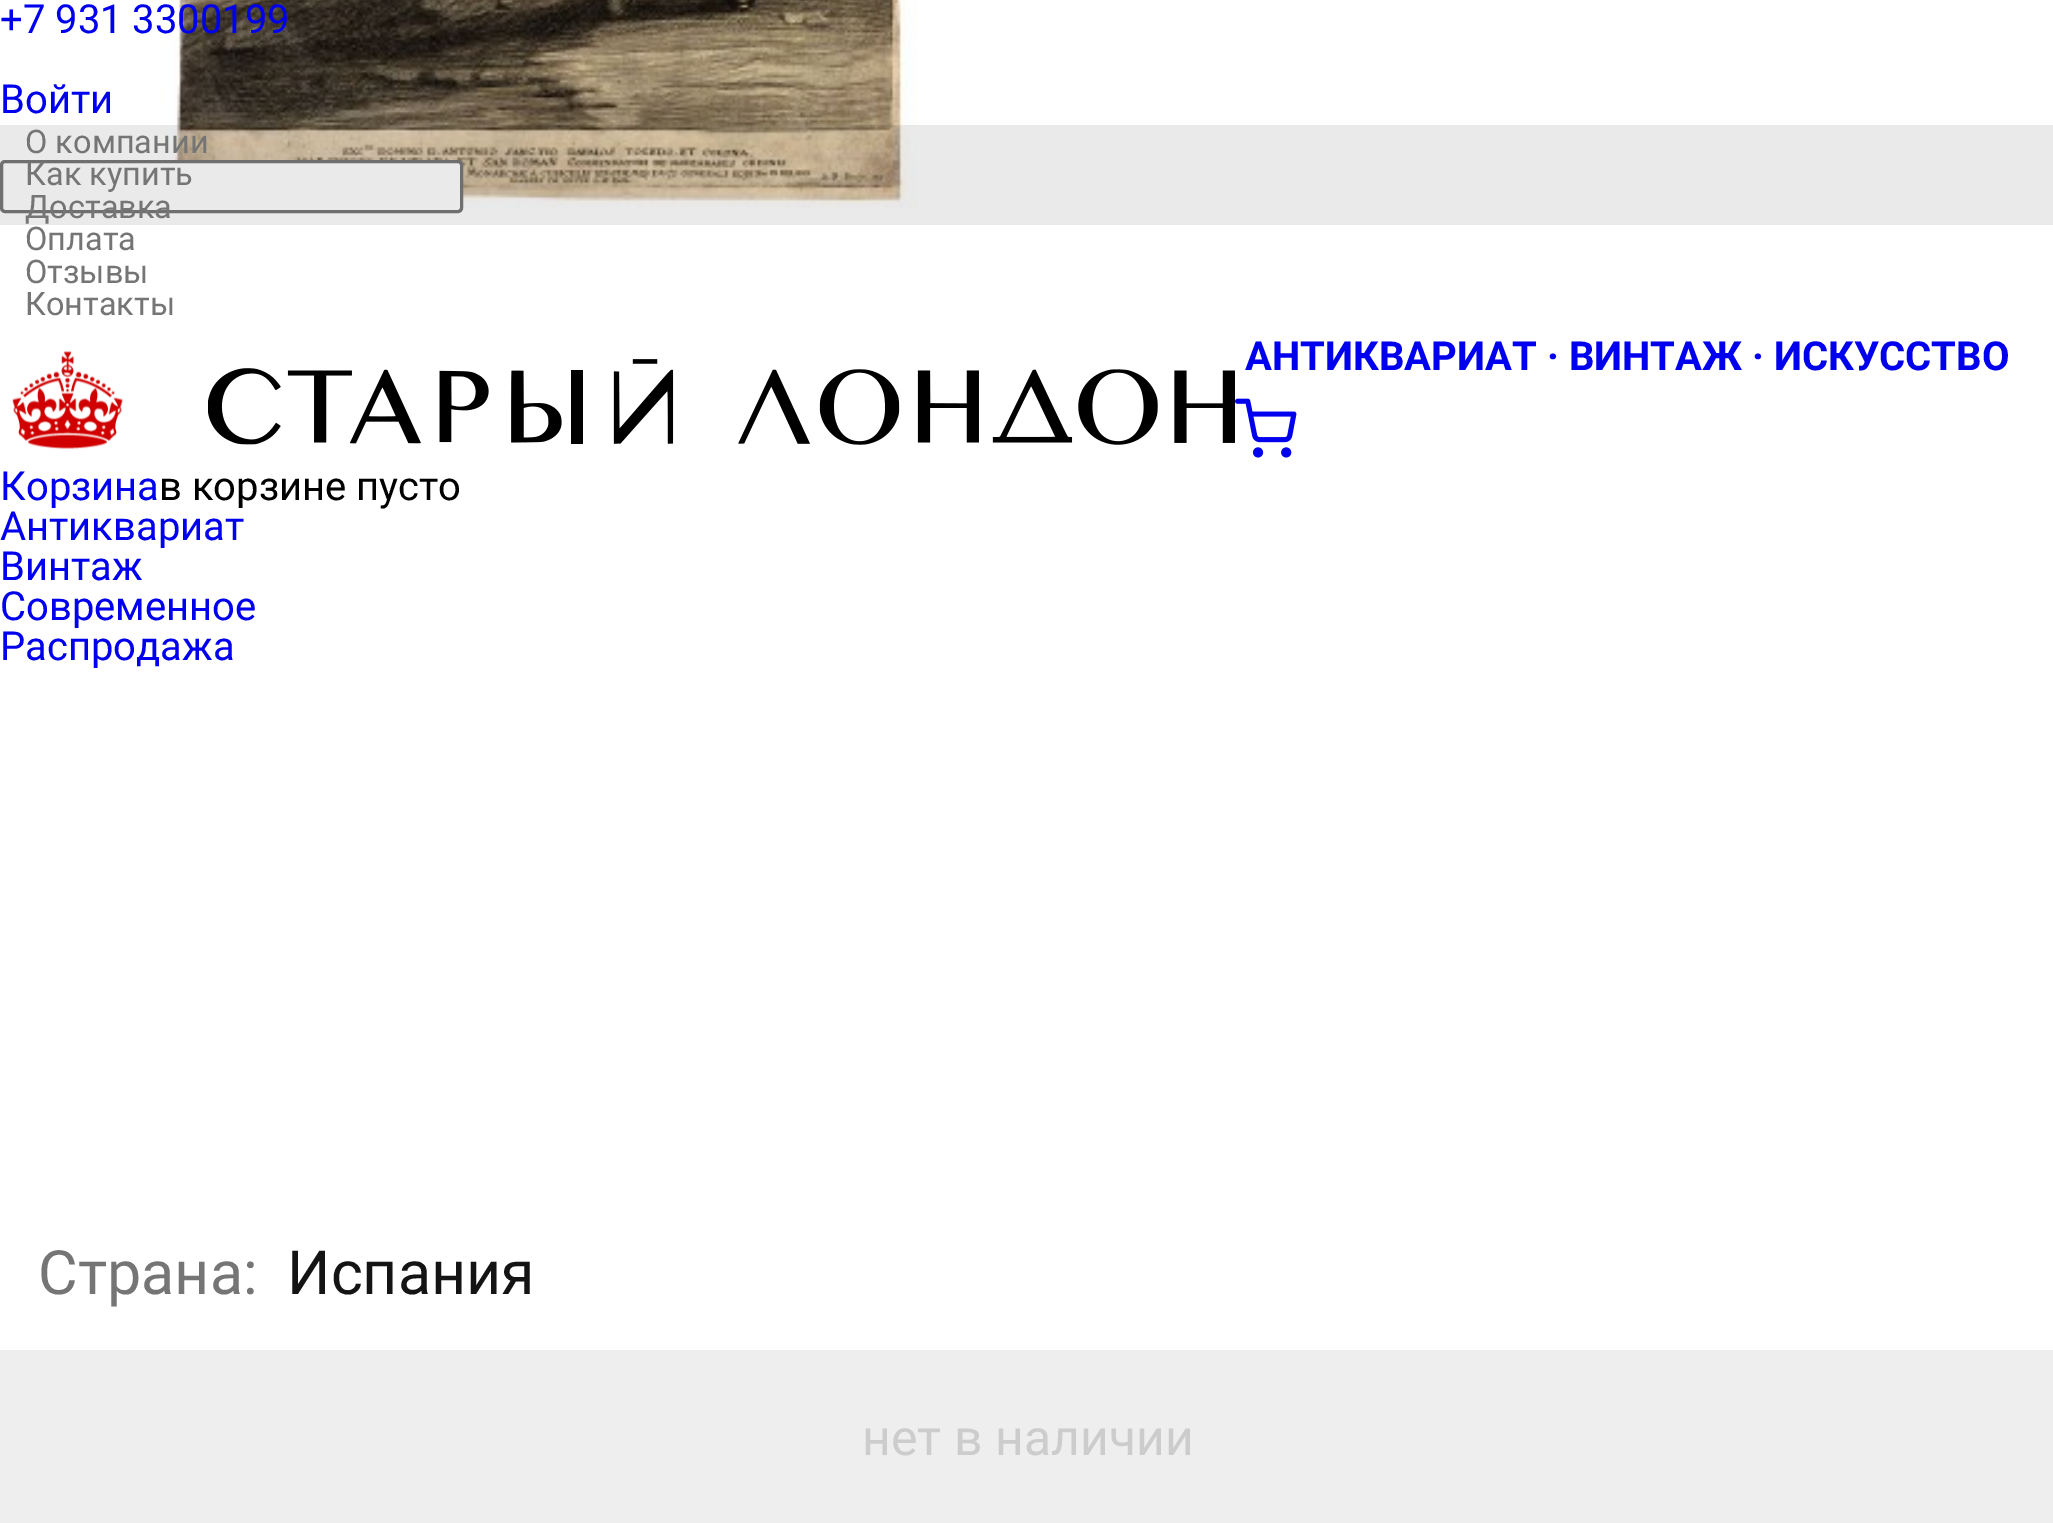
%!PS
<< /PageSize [2053 1523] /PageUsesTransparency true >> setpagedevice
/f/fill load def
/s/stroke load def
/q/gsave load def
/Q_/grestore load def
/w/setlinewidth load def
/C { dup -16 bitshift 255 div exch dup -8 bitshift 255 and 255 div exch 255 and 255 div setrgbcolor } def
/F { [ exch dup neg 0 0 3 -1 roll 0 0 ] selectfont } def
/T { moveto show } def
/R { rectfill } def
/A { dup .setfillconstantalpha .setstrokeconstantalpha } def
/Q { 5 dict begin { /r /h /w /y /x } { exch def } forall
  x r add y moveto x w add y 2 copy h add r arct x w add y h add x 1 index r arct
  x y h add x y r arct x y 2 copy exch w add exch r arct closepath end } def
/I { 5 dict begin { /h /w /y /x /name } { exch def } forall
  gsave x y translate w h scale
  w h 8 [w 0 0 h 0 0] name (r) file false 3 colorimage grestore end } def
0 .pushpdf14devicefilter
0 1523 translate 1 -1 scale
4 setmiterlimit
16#FFFFFF C
0 0 2053 1523 R
(4.rgb) 158 0 759 208 I
/Roboto-Regular 40 F
16#0000EE C
(+7 931 3300199) 0 33 T
(Войти) 0 113 T
16#FFFFFF C
1.5 161.5 460 50 3.5 Q q f Q_
16#767676 C
3 w
s
0.1 A
16#323232 C
0 125 2053 100 R
/Roboto-Regular 32.5 F
1 A
16#757575 C
(О компании) 25 153 T
(Как купить) 25 185 T
(Доставка) 25 218 T
(Оплата) 25 250 T
(Отзывы) 25 283 T
(Контакты) 25 315 T
(1.rgb) 12 351 111 98 I
(2.rgb) 208 359 1027 86 I
/Roboto-Bold 40 F
16#0000EE C
(АНТИКВАРИАТ · ВИНТАЖ · ИСКУССТВО) 1245 370 T
(3.rgb) 1235 398 62 60 I
/Roboto-Regular 40 F
(Корзина) 0 500 T
16#000000 C
(в корзине пусто) 159 500 T
16#0000EE C
(Антиквариат) 0 540 T
(Винтаж) 0 580 T
(Современное) 0 620 T
(Распродажа) 0 660 T
/Roboto-Regular 61 F
16#757575 C
(Страна:) 38 1294 T
16#141414 C
(Испания) 287 1294 T
16#EEEEEE C
0 1350 2053 173 R
/Roboto-Regular 50 F
16#CCCCCC C
(нет в наличии) 862 1455 T
.poppdf14devicefilter showpage
